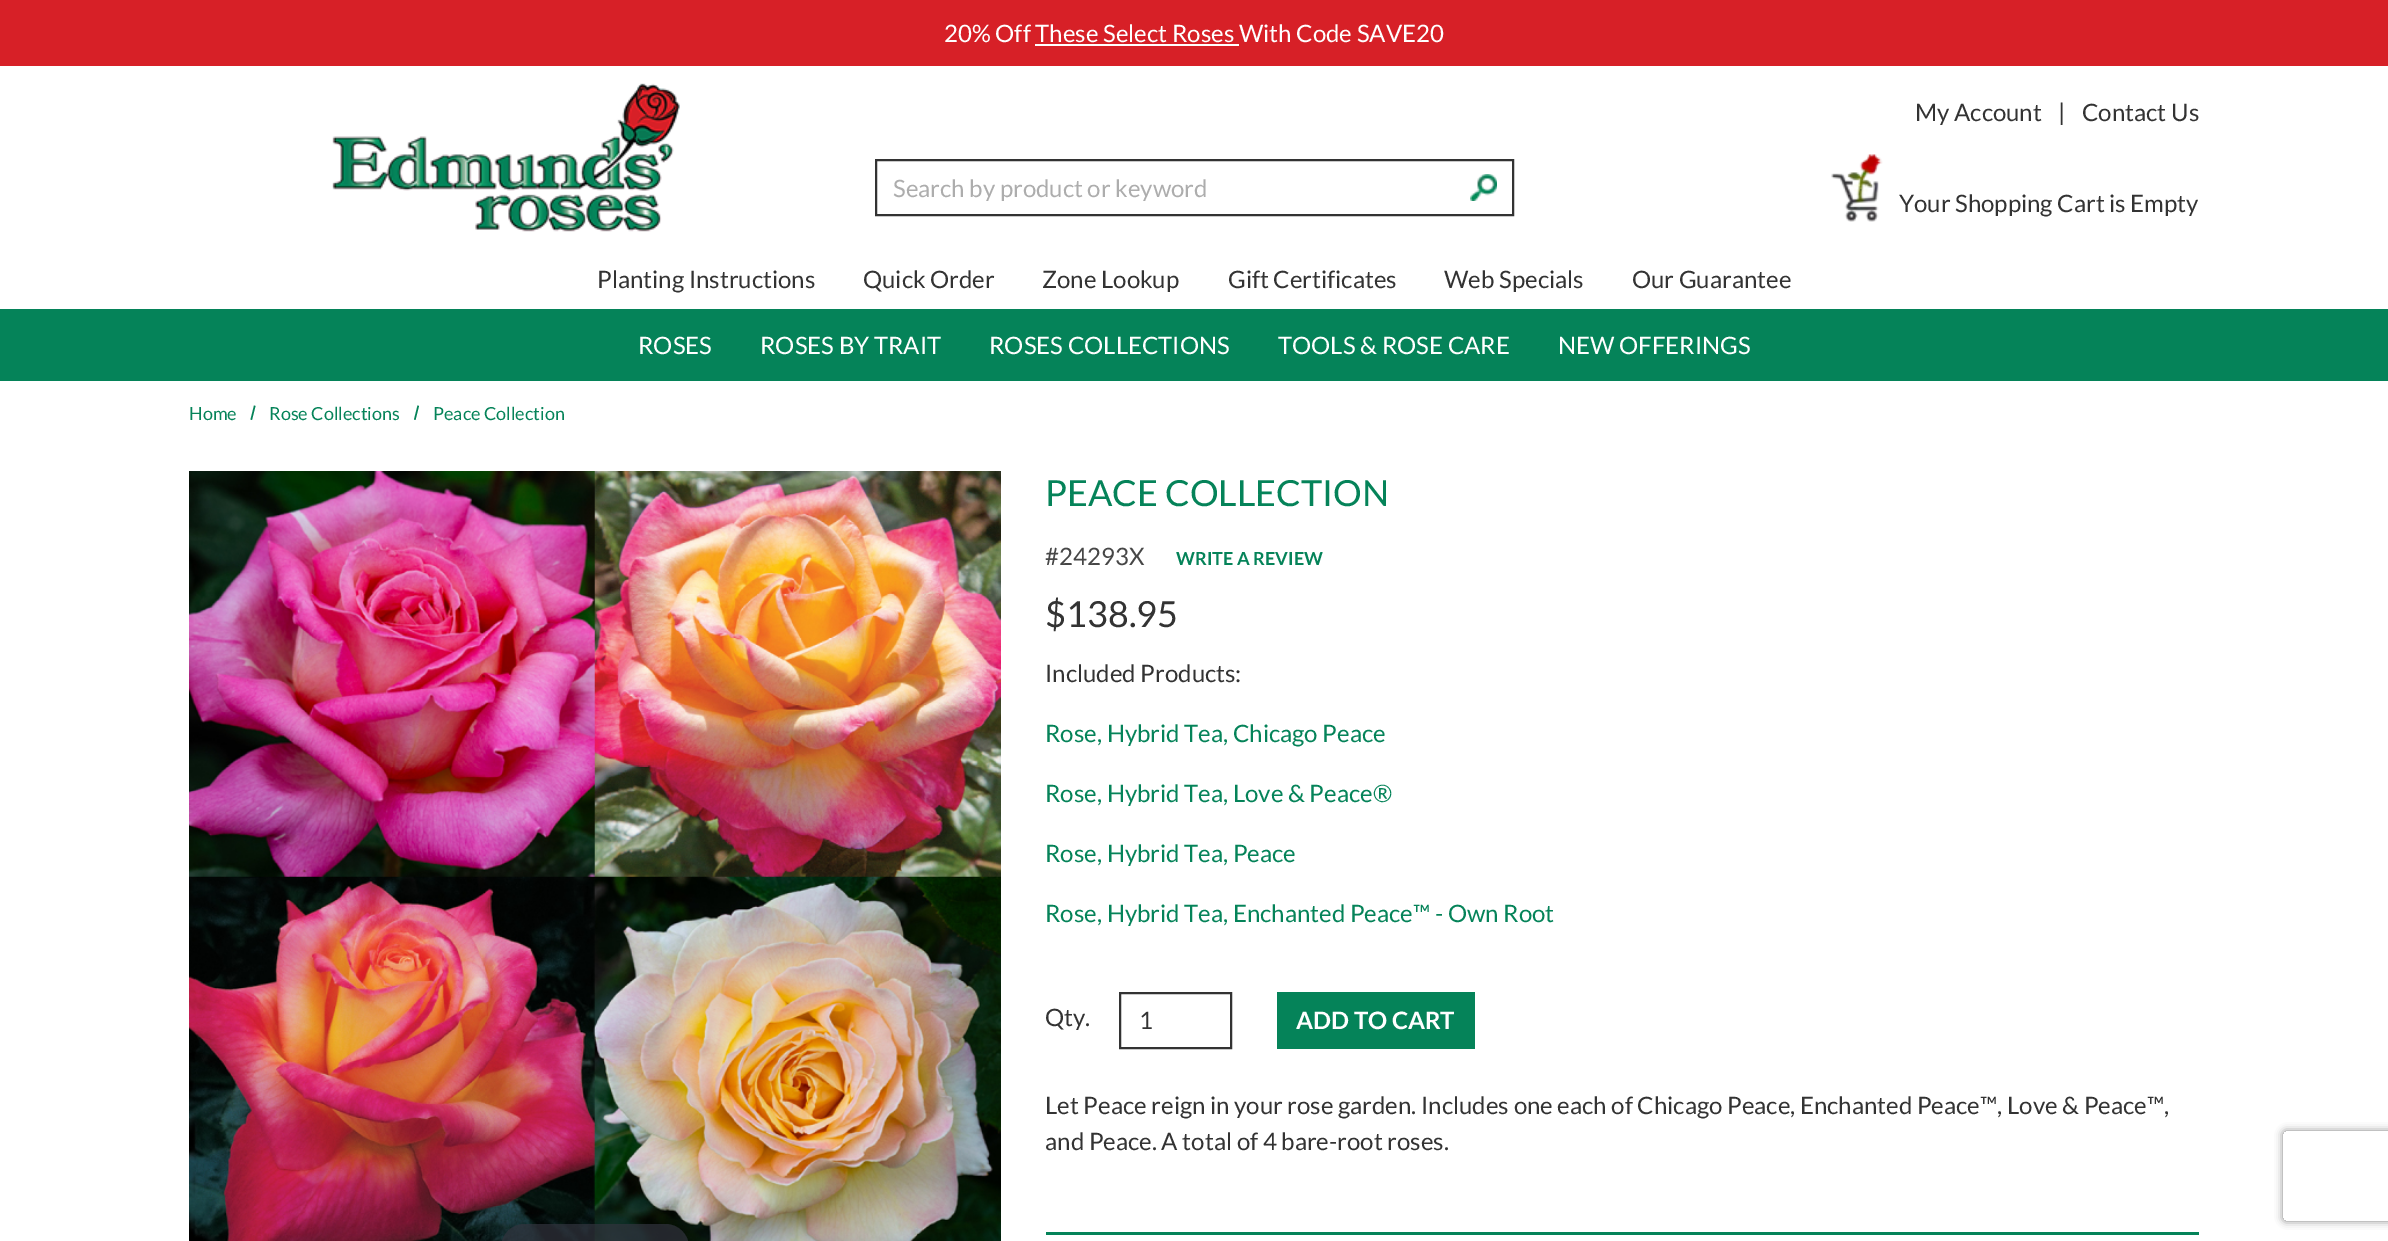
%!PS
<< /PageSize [2388 1241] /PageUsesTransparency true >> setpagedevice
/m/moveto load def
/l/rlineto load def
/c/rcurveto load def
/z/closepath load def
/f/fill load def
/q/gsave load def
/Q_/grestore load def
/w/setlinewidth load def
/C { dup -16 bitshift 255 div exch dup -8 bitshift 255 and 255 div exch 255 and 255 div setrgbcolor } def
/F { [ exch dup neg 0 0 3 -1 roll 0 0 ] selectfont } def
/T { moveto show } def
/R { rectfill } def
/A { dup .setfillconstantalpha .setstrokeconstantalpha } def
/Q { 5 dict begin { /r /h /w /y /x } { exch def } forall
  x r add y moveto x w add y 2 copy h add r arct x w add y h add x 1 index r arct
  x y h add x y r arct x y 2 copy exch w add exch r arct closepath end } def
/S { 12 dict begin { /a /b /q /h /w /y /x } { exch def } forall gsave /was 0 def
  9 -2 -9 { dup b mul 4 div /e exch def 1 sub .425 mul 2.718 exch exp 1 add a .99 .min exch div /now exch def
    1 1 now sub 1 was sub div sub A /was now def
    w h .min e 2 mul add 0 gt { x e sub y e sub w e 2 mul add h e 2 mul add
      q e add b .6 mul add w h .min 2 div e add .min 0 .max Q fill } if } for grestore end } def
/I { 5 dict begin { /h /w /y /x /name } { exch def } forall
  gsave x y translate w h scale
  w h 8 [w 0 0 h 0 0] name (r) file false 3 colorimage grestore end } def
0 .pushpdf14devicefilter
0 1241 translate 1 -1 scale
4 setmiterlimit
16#FFFFFF C
0 0 2388 1241 R
16#D72027 C
0 0 2388 66 R
/Lato-Regular 24 F
16#FFFFFF C
(20% Off These Select Roses With Code SAVE20) 944 42 T
1035 44 204 2 R
(1.rgb) 332 83 348 149 I
16#333333 C
2 w
876 160 637 55 rectstroke
16#ADADAD C
(Search by product or keyword) 893 197 T
(2.rgb) 1470 174 27 27 I
16#333333 C
(My Account) 1915 121 T
(|) 2058 121 T
(Contact Us) 2082 121 T
(3.rgb) 1831 154 52 68 I
(Your Shopping Cart is Empty) 1899 212 T
(Planting Instructions) 597 288 T
(Quick Order) 863 288 T
(Zone Lookup) 1042 288 T
(Gift Certificates) 1228 288 T
(Web Specials) 1444 288 T
(Our Guarantee) 1632 288 T
16#058359 C
0 309 2388 72 R
16#FFFFFF C
(ROSES) 638 354 T
(ROSES BY TRAIT) 760 354 T
(ROSES COLLECTIONS) 989 354 T
(TOOLS & ROSE CARE) 1278 354 T
(NEW OFFERINGS) 1558 354 T
/Lato-Regular 18 F
16#058359 C
(Home) 189 420 T
254 405.5 m 1.5 .5 l -3.5 14 l -1.5 -.5 l z f
(Rose Collections) 269 420 T
417.5 405.5 m 1.5 .5 l -3.5 14 l -1.5 -.5 l z f
(Peace Collection) 433 420 T
(4.rgb) 189 471 812 770 I
0.7 A
16#31333D C
501 1224 188 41 23.5 Q f
/Lato-Regular 36 F
1 A
16#058359 C
(PEACE COLLECTION) 1045 506 T
/Lato-Regular 24 F
16#474747 C
(#24293X) 1045 565 T
/Lato-Bold 18 F
16#058359 C
(WRITE A REVIEW) 1176 565 T
/Lato-Regular 36 F
16#333333 C
($138.95) 1045 627 T
/Lato-Regular 24 F
(Included Products:) 1045 682 T
16#058359 C
(Rose, Hybrid Tea, Chicago Peace) 1045 742 T
(Rose, Hybrid Tea, Love & Peace®) 1045 802 T
(Rose, Hybrid Tea, Peace) 1045 862 T
(Rose, Hybrid Tea, Enchanted Peace™ - Own Root) 1045 922 T
16#333333 C
(Qty.) 1045 1026 T
1120 993 111 55 rectstroke
(1) 1139 1029 T
16#058359 C
1277 992 198 57 R
/Lato-Bold 24 F
16#FFFFFF C
(ADD TO CART) 1296 1029 T
/Lato-Regular 24 F
16#333333 C
(Let Peace reign in your rose garden. Includes one each of Chicago Peace, Enchanted Peace™, Love & Peace™,) 1045 1114 T
(and Peace. A total of 4 bare-root roses.) 1045 1150 T
16#058359 C
1046 1232 1153 3 R
q
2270 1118 m 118 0 l 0 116 l -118 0 l z 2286 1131 m 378 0 l 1.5 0 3 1.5 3 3 c 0 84 l 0 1.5 -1.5 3 -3 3 c -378 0 l -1.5 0 -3 -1.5 -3 -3 c 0 -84 l 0 -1.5 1.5 -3 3 -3 c z eoclip newpath
16#808080 C
2283 1131 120 90 3 4 1 S
Q_
.poppdf14devicefilter showpage
